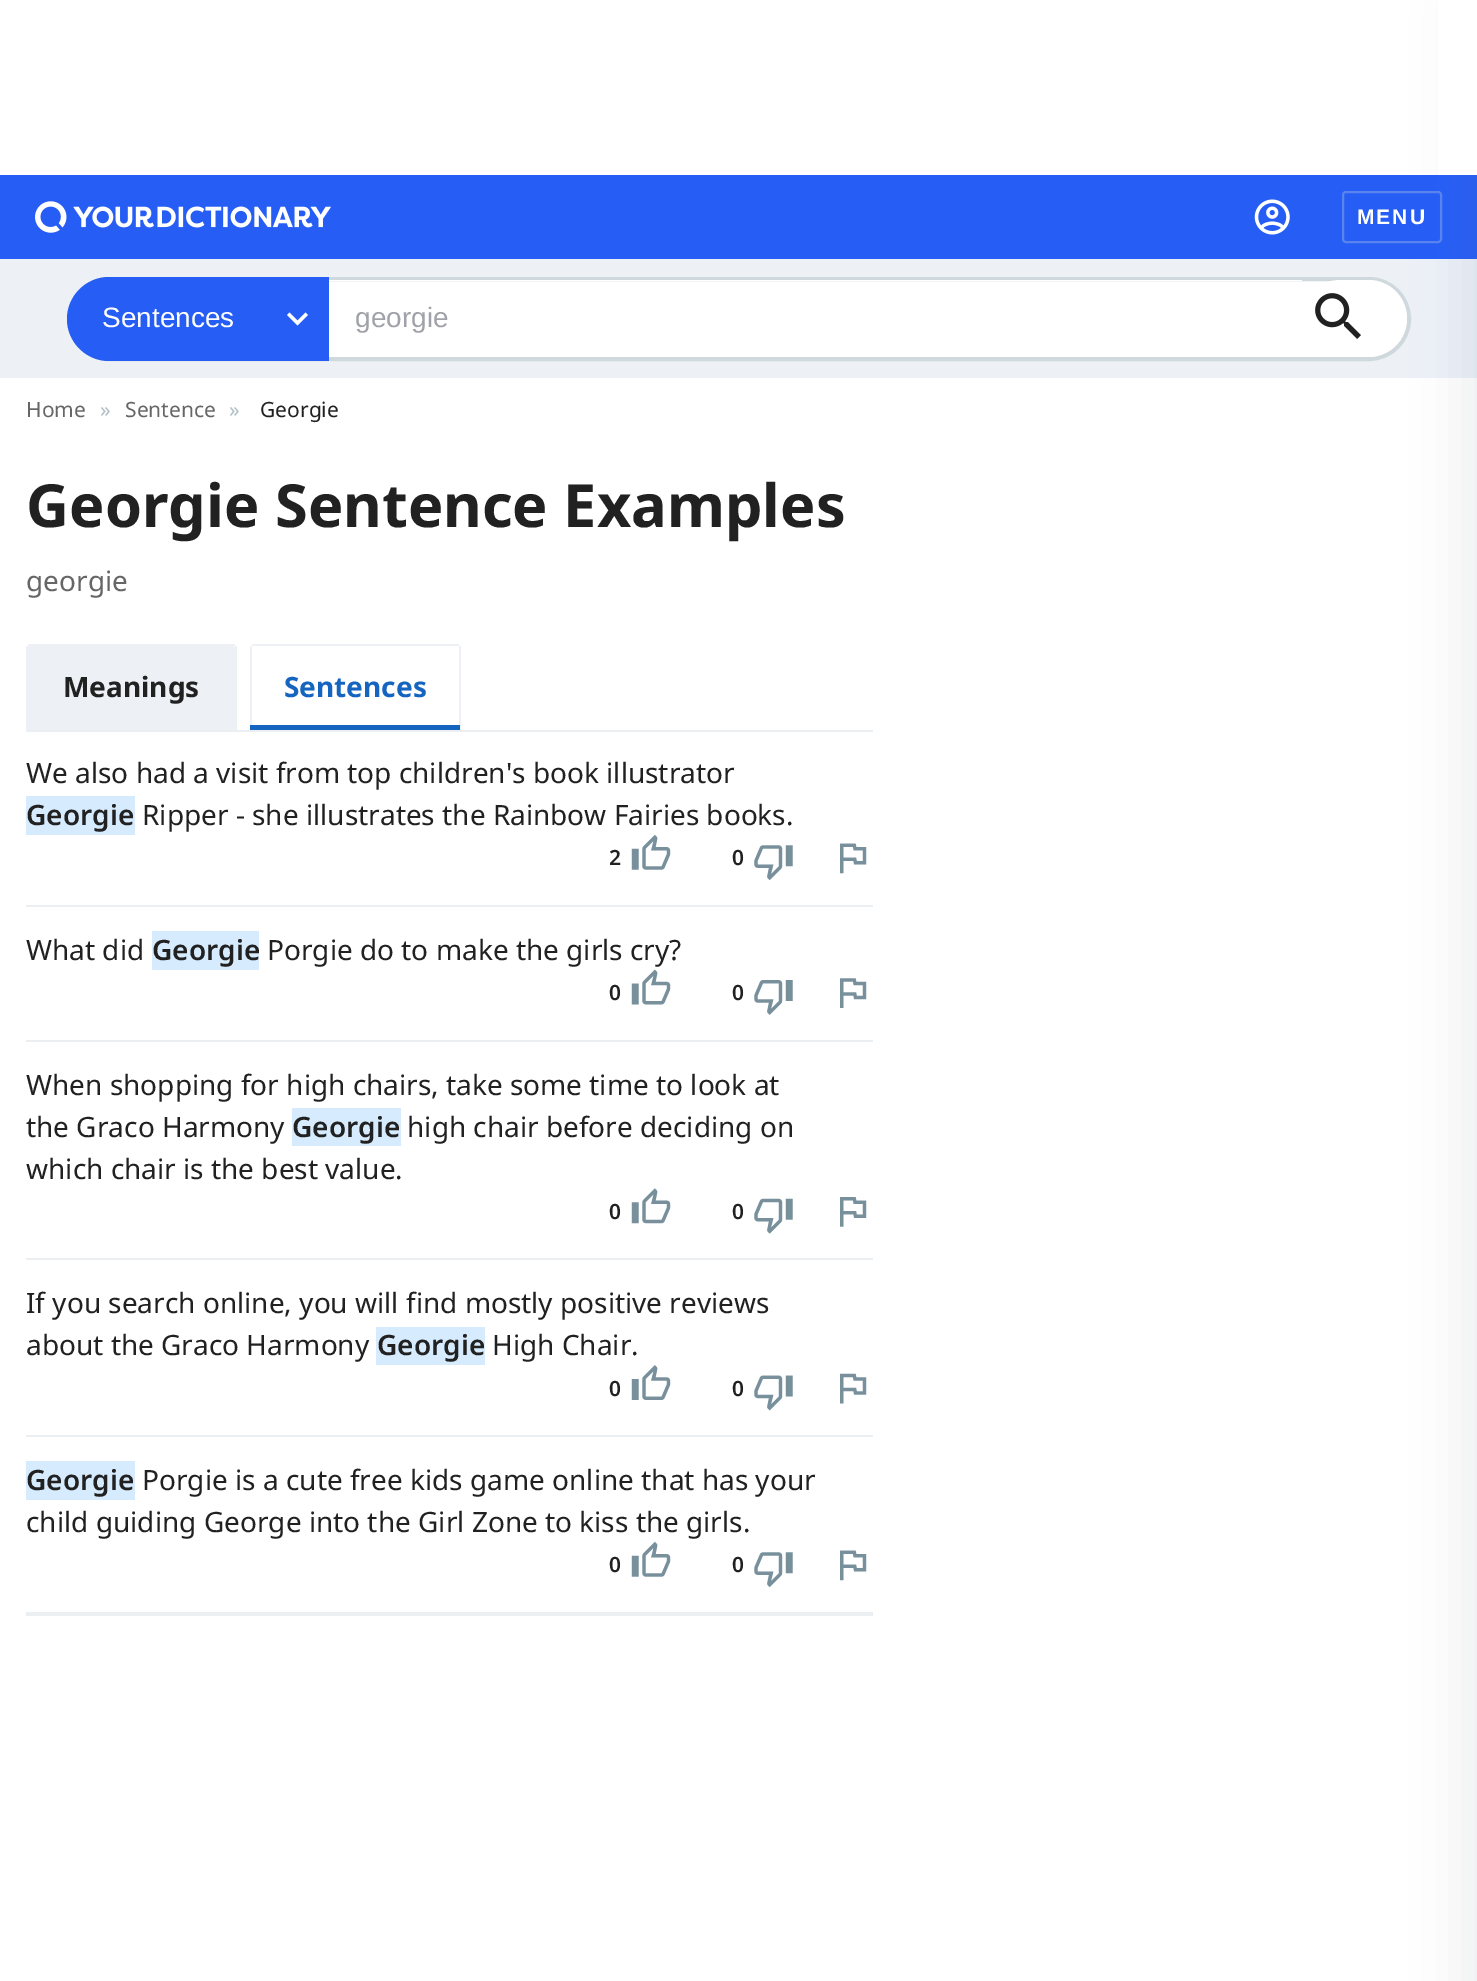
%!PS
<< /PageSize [1477 1981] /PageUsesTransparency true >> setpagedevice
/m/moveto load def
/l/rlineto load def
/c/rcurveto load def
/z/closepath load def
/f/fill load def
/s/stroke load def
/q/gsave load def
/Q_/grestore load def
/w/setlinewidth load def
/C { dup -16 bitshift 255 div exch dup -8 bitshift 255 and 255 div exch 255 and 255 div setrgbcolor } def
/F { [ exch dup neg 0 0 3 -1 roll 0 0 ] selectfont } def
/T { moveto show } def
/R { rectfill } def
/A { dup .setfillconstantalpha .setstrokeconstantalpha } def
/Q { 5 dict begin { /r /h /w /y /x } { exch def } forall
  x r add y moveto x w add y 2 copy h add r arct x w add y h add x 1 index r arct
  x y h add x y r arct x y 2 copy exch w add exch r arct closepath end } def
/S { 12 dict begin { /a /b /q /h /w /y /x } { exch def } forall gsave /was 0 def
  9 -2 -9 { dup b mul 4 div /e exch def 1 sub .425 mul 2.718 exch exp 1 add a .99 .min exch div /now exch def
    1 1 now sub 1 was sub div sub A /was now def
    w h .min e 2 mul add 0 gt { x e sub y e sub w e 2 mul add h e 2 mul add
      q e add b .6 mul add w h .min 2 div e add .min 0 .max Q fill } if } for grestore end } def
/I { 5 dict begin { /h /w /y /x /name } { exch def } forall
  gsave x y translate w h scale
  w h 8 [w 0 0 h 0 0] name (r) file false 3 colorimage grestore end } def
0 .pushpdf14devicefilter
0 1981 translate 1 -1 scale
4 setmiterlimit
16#FFFFFF C
0 0 1477 1981 R
16#265EF5 C
0 175 1477 84 R
16#5983EE C
2 w
1343 192 98 50 3 Q s
16#EDF1F6 C
0 259 1477 119 R
16#FFFFFF C
69 279 1340 80 40 Q q f Q_
16#CFD8DC C
4 w
s
16#FFFFFF C
1302 280 105 77 38.5 Q f
16#546E7A C
1468 2 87 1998 0 26 .12 S
16#FFFFFF C
1438 0 39 175 R
(1.rgb) 35 201 296 32 I
(2.rgb) 1254 199 36 36 I
/LiberationSans-Bold 21 F
1357 224 m 2 0 (MENU) ashow
16#265EF5 C
109 277 m 220 0 l 0 84 l -220 0 l -23 0 -42 -19 -42 -42 c 0 -23 19 -42 42 -42 c z f
/LiberationSans-Regular 28 F
16#FFFFFF C
(Sentences) 102 327 T
305.5 312.5 m -8 8 l -8 -8 l -2.5 2.5 l 10.5 10.5 l 10.5 -10.5 l z f
329 280 973 1 R
16#A1A1AA C
(georgie) 355 327 T
(3.rgb) 1315 293 46 46 I
/NotoSans-Regular 21 F
16#666666 C
(Home) 26 417 T
16#B0BEC5 C
(») 100 417 T
16#666666 C
(Sentence) 125 417 T
16#B0BEC5 C
(») 229 417 T
16#212121 C
(Georgie) 260 417 T
/NotoSans-Bold 59.5 F
(Georgie Sentence Examples) 26 527 T
/NotoSans-Regular 28 F
16#666666 C
(georgie) 26 591 T
16#EDF1F6 C
30 646 m 203 0 l 1 0 2 1 2 2 c 0 82 l -207 0 l 0 -82 l 0 -1 1 -2 2 -2 c z f
28 644 207 2 R
235 646 2 84 R
26 646 2 84 R
/NotoSans-Bold 28 F
16#212121 C
(Meanings) 63 697 T
16#EDF1F6 C
252 644 207 2 R
459 646 2 84 R
250 646 2 84 R
16#1565C0 C
(Sentences) 284 697 T
250 725 210 5 R
16#ECEFF1 C
26 730 847 2 R
26 905 847 2 R
/NotoSans-Regular 28 F
16#212121 C
(We also had a visit from top children's book illustrator) 26 783 T
16#D6EBFD C
26 796 109 39 R
/NotoSans-SemiBold 28 F
16#212121 C
(Georgie) 26 825 T
/NotoSans-Regular 28 F
(Ripper - she illustrates the Rainbow Fairies books.) 142 825 T
/NotoSans-SemiBold 21 F
(2) 609 865 T
(4.rgb) 631 834 40 36 I
(0) 732 865 T
(5.rgb) 754 845 39 36 I
(6.rgb) 840 843 27 31 I
16#ECEFF1 C
26 1040 847 2 R
/NotoSans-Regular 28 F
16#212121 C
(What did) 26 960 T
16#D6EBFD C
152 931 107 39 R
/NotoSans-SemiBold 28 F
16#212121 C
(Georgie) 152 960 T
/NotoSans-Regular 28 F
(Porgie do to make the girls cry?) 267 960 T
/NotoSans-SemiBold 21 F
(0) 609 1000 T
(7.rgb) 631 969 40 36 I
(0) 732 1000 T
(8.rgb) 754 980 39 35 I
(9.rgb) 840 978 27 30 I
16#ECEFF1 C
26 1258 847 2 R
/NotoSans-Regular 28 F
16#212121 C
(When shopping for high chairs, take some time to look at) 26 1095 T
(the Graco Harmony) 26 1137 T
16#D6EBFD C
292 1108 109 38 R
/NotoSans-SemiBold 28 F
16#212121 C
(Georgie) 292 1137 T
/NotoSans-Regular 28 F
(high chair before deciding on) 407 1137 T
(which chair is the best value.) 26 1179 T
/NotoSans-SemiBold 21 F
(0) 609 1219 T
(10.rgb) 631 1188 40 36 I
(0) 732 1219 T
(11.rgb) 754 1198 39 36 I
(12.rgb) 840 1197 27 30 I
16#ECEFF1 C
26 1435 847 2 R
/NotoSans-Regular 28 F
16#212121 C
(If you search online, you will find mostly positive reviews) 26 1313 T
(about the Graco Harmony) 26 1355 T
16#D6EBFD C
376 1327 109 38 R
/NotoSans-SemiBold 28 F
16#212121 C
(Georgie) 377 1355 T
/NotoSans-Regular 28 F
(High Chair.) 492 1355 T
/NotoSans-SemiBold 21 F
(0) 609 1396 T
(13.rgb) 631 1365 40 35 I
(0) 732 1396 T
(14.rgb) 754 1375 39 36 I
(15.rgb) 840 1373 27 31 I
16#D6EBFD C
26 1461 109 39 R
/NotoSans-SemiBold 28 F
16#212121 C
(Georgie) 26 1490 T
/NotoSans-Regular 28 F
(Porgie is a cute free kids game online that has your) 142 1490 T
(child guiding George into the Girl Zone to kiss the girls.) 26 1532 T
/NotoSans-SemiBold 21 F
(0) 609 1572 T
(4.rgb) 631 1541 40 36 I
(0) 732 1572 T
(5.rgb) 754 1552 39 36 I
(6.rgb) 840 1550 27 31 I
16#ECEFF1 C
26 1612 847 4 R
.poppdf14devicefilter showpage
